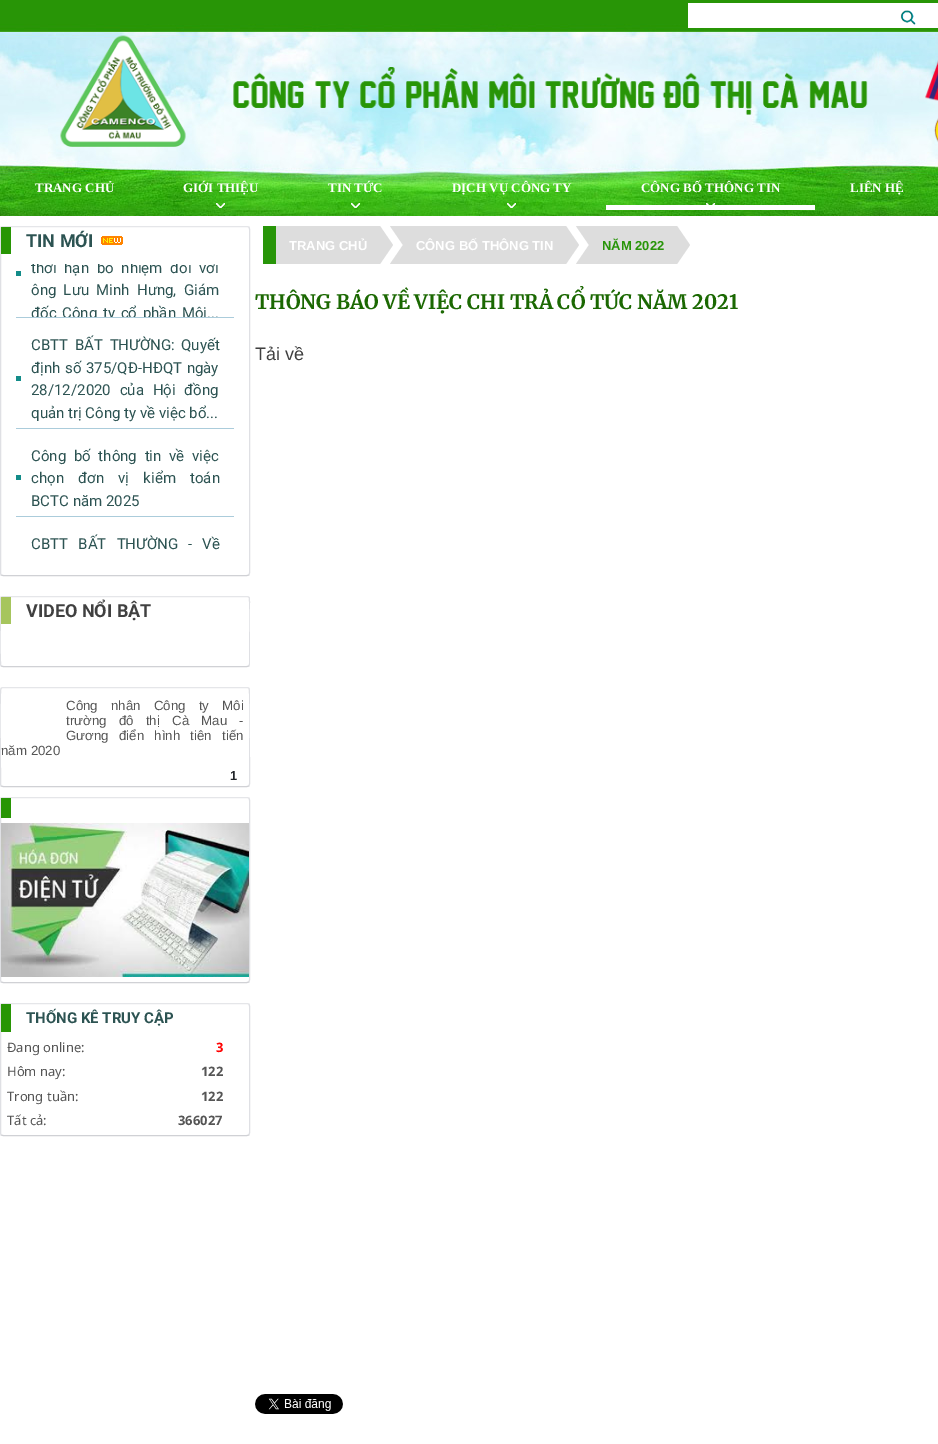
%!PS
<< /PageSize [938 1444] >> setpagedevice
/m/moveto load def
/l/rlineto load def
/c/rcurveto load def
/z/closepath load def
/f/fill load def
/s/stroke load def
/q/gsave load def
/Q_/grestore load def
/C { dup -16 bitshift 255 div exch dup -8 bitshift 255 and 255 div exch 255 and 255 div setrgbcolor } def
/F { [ exch dup neg 0 0 3 -1 roll 0 0 ] selectfont } def
/T { moveto show } def
/R { rectfill } def
/I { 5 dict begin { /h /w /y /x /name } { exch def } forall
  gsave x y translate w h scale
  w h 8 [w 0 0 h 0 0] name (r) file false 3 colorimage grestore end } def
0 1444 translate 1 -1 scale
4 setmiterlimit
16#FFFFFF C
0 0 938 1444 R
(1.rgb) 0 0 938 216 I
688 3 250 25 R
(2.rgb) 900 10 16 15 I
(3.rgb) 60 35 878 112 I
/LiberationSerif-Bold 13 F
(TRANG CHỦ) 35 192 T
(4.rgb) 216 203 9 5 I
(GIỚI THIỆU) 183 192 T
(5.rgb) 351 203 9 5 I
(TIN TỨC) 328 192 T
(6.rgb) 507 203 9 5 I
(DỊCH VỤ CÔNG TY) 452 192 T
(7.rgb) 706 203 9 2 I
(CÔNG BỐ THÔNG TIN) 641 192 T
606 205 209 5 R
(LIÊN HỆ) 850 192 T
16#E5E6E9 C
1 227 m 2 -.5 l 244 0 l 2 .5 l s
16#DFE0E4 C
249 227 m .5 2 l 0 344 l -.5 2 l s
16#D0D1D5 C
249 575 m -2 .5 l -244 0 l -2 -.5 l s
16#DFE0E4 C
1 575 m -.5 -2 l 0 -344 l .5 -2 l s
16#289504 C
1 227 10 27 R
(8.rgb) 101 236 22 9 I
/Roboto-Bold 18 F
16#2C5352 C
(TIN MỚI) 26 247 T
16#138C89 C
16 271 5 5 R
16#ABCCDB C
16 317 218 1 R
q
16 264 218 53 rectclip
/Roboto-Regular 15 F
16#2C5352 C
31 273 m 4 0 32 (thời hạn bổ nhiệm đối với) widthshow
Q_
/Roboto-Regular 15 F
16#2C5352 C
31 295 m 3.5 0 32 (ông Lưu Minh Hưng, Giám) widthshow
q
16 264 218 53 rectclip
31 318 m 2 0 32 (đốc Công ty cổ phần Môi...) widthshow
Q_
16#138C89 C
16 376 5 5 R
16#ABCCDB C
16 428 218 1 R
16#2C5352 C
31 350 m 3 0 32 (CBTT BẤT THƯỜNG: Quyết) widthshow
31 373 m 1 0 32 (định số 375/QĐ-HĐQT ngày) widthshow
31 395 m 5 0 32 (28/12/2020 của Hội đồng) widthshow
(quản trị Công ty về việc bổ...) 31 418 T
16#138C89 C
16 475 5 5 R
16#ABCCDB C
16 516 218 1 R
16#2C5352 C
31 461 m 4 0 32 (Công bố thông tin về việc) widthshow
31 483 m 10.5 0 32 (chọn đơn vị kiểm toán) widthshow
(BCTC năm 2025) 31 506 T
31 549 m 6.5 0 32 (CBTT BẤT THƯỜNG - Về) widthshow
16#E5E6E9 C
1 597 m 2 -.5 l 244 0 l 2 .5 l s
16#DFE0E4 C
249 597 m 0 .5 l 1.5 2 .5 49.5 .5 55.5 c 0 11 l -.5 2 l s
16#D0D1D5 C
249 666 m -2 .5 l -244 0 l -2 -.5 l s
16#DFE0E4 C
1 666 m 0 -.5 l -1.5 -2 -.5 -49.5 -.5 -55.5 c 0 -11 l .5 -2 l s
16#A6C55D C
1 597 10 27 R
/Roboto-Bold 18 F
16#404040 C
(VIDEO NỔI BẬT) 26 617 T
16#E5E6E9 C
1 688 m 2 -.5 l 244 0 l 2 .5 l s
16#DFE0E4 C
249 688 m 0 .5 l 1.5 2 .5 71.5 .5 80 c 0 15.5 l -.5 2 l s
16#D0D1D5 C
249 786 m -2 .5 l -244 0 l -2 -.5 l s
16#DFE0E4 C
1 786 m -.5 -2 l 0 -15.5 l 0 -8.5 -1 -78 .5 -80 c 0 -.5 l s
/LiberationSans-Regular 13.3 F
16#555555 C
66 710 m 9.5 0 32 (Công nhân Công ty Môi) widthshow
66 725 m 8.5 0 32 (trường đô thị Cà Mau -) widthshow
66 740 m 6.5 0 32 (Gương điển hình tiên tiến) widthshow
(năm 2020) 1 755 T
/LiberationSans-Bold 13 F
16#212529 C
(1) 230 780 T
16#E5E6E9 C
1 798 m 2 -.5 l 244 0 l 2 .5 l s
16#DFE0E4 C
249 798 m .5 2 l 0 180 l -.5 2 l s
16#D0D1D5 C
249 982 m -2 .5 l -244 0 l -2 -.5 l s
16#DFE0E4 C
1 982 m -.5 -2 l 0 -180 l .5 -2 l s
16#289504 C
1 798 10 20 R
(9.rgb) 1 823 248 154 I
16#E5E6E9 C
1 1004 m 2 -.5 l 244 0 l 2 .5 l s
16#DFE0E4 C
249 1004 m .5 2 l 0 106 l 0 21 l -.5 2 l s
16#D0D1D5 C
249 1135 m -2 .5 l -244 0 l -2 -.5 l s
16#DFE0E4 C
1 1135 m -.5 -2 l 0 -106 l 0 -21 l .5 -2 l s
16#289504 C
1 1004 10 28 R
/Roboto-Bold 15 F
16#2C5352 C
(THỐNG KÊ TRUY CẬP) 26 1023 T
/NotoSans-Regular 13 F
16#555555 C
(Đang online:) 7 1052 T
/NotoSans-Bold 13 F
16#FF0000 C
(3) 216 1052 T
/NotoSans-Regular 13 F
16#555555 C
(Hôm nay:) 7 1076 T
/NotoSans-Bold 13 F
(122) 201 1076 T
/NotoSans-Regular 13 F
(Trong tuần:) 7 1101 T
/NotoSans-Bold 13 F
(122) 201 1101 T
/NotoSans-Regular 13 F
(Tất cả:) 7 1125 T
/NotoSans-Bold 13 F
(366027) 178 1125 T
16#DDDDDD C
276 226 104 38 R
16#289509 C
263 226 13 38 R
/LiberationSans-Bold 13 F
16#FFFFFF C
(TRANG CHỦ) 289 250 T
16#DDDDDD C
380 264 m 0 -38 l 13 19 l z f
403 226 163 38 R
390 226 m 13 0 l 0 19 l z 403 264 m -13 0 l 13 -19 l z f
16#FFFFFF C
(CÔNG BỐ THÔNG TIN) 416 250 T
16#DDDDDD C
566 264 m 0 -38 l 13 19 l z f
589 226 88 38 R
576 226 m 13 0 l 0 19 l z 589 264 m -13 0 l 13 -19 l z f
16#289509 C
(NĂM 2022) 602 250 T
16#DDDDDD C
677 264 m 0 -38 l 13 19 l z f
16#FFFFFF C
250 603 1 154 R
/Merriweather-Bold 20 F
16#1B6802 C
(THÔNG BÁO VỀ VIỆC CHI TRẢ CỔ TỨC NĂM 2021) 255 309 T
/LiberationSans-Regular 18 F
16#404040 C
(Tải về) 255 360 T
(10.rgb) 255 1394 88 20 I
showpage
